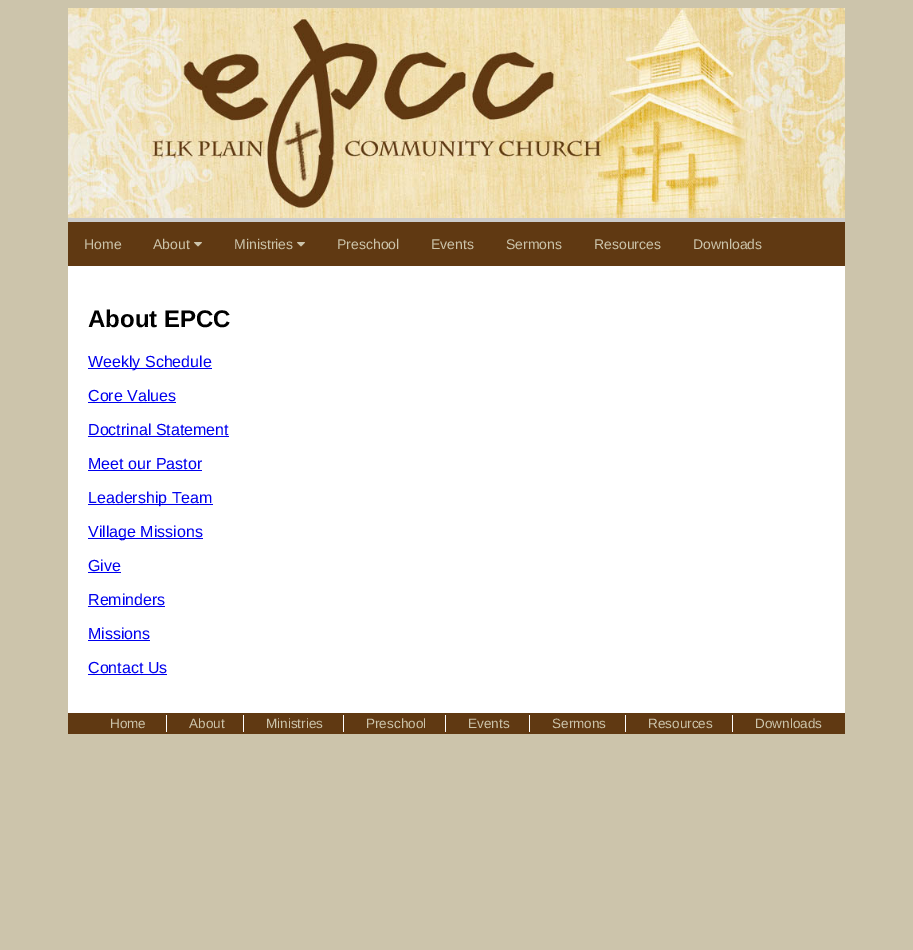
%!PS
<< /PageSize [913 950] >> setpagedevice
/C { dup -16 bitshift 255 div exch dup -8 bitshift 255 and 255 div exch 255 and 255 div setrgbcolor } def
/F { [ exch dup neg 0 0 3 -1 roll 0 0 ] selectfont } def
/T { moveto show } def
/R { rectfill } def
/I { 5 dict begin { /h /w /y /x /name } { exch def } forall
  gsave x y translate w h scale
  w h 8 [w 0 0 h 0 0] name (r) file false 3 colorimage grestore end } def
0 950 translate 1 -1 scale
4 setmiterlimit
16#CCC4AB C
0 0 913 950 R
16#CCCCCC C
68 218 777 4 R
(1.rgb) 68 8 777 210 I
16#603912 C
68 222 777 44 R
/LiberationSans-Regular 14 F
16#CCC4AB C
(Home) 84 249 T
(About) 153 249 T
(2.rgb) 194 242 8 5 I
(Ministries) 234 249 T
(2.rgb) 297 242 8 5 I
(Preschool) 337 249 T
(Events) 431 249 T
(Sermons) 506 249 T
(Resources) 594 249 T
(Downloads) 693 249 T
16#FFFFFF C
68 266 777 447 R
/LiberationSans-Bold 24 F
16#000000 C
(About EPCC) 88 327 T
16#0000EE C
88 368 124 1 R
/LiberationSans-Regular 16 F
(Weekly Schedule) 88 367 T
(Core Values) 88 401 T
88 402 88 1 R
(Doctrinal Statement) 88 435 T
88 436 141 1 R
(Meet our Pastor) 88 469 T
88 470 114 1 R
88 504 125 1 R
(Leadership Team) 88 503 T
88 538 115 1 R
(Village Missions) 88 537 T
(Give) 88 571 T
88 572 33 1 R
(Reminders) 88 605 T
88 606 77 1 R
(Missions) 88 639 T
88 640 62 1 R
(Contact Us) 88 673 T
88 674 79 1 R
16#603912 C
68 713 777 21 R
16#FFFFFF C
166 715 1 17 R
/LiberationSans-Regular 13.5 F
16#CCC4AB C
(Home) 110 728 T
16#FFFFFF C
243 715 1 17 R
16#CCC4AB C
(About) 189 728 T
16#FFFFFF C
343 715 1 17 R
16#CCC4AB C
(Ministries) 266 728 T
16#FFFFFF C
445 715 1 17 R
16#CCC4AB C
(Preschool) 366 728 T
16#FFFFFF C
529 715 1 17 R
16#CCC4AB C
(Events) 468 728 T
16#FFFFFF C
625 715 1 17 R
16#CCC4AB C
(Sermons) 552 728 T
16#FFFFFF C
732 715 1 17 R
16#CCC4AB C
(Resources) 648 728 T
(Downloads) 755 728 T
showpage
